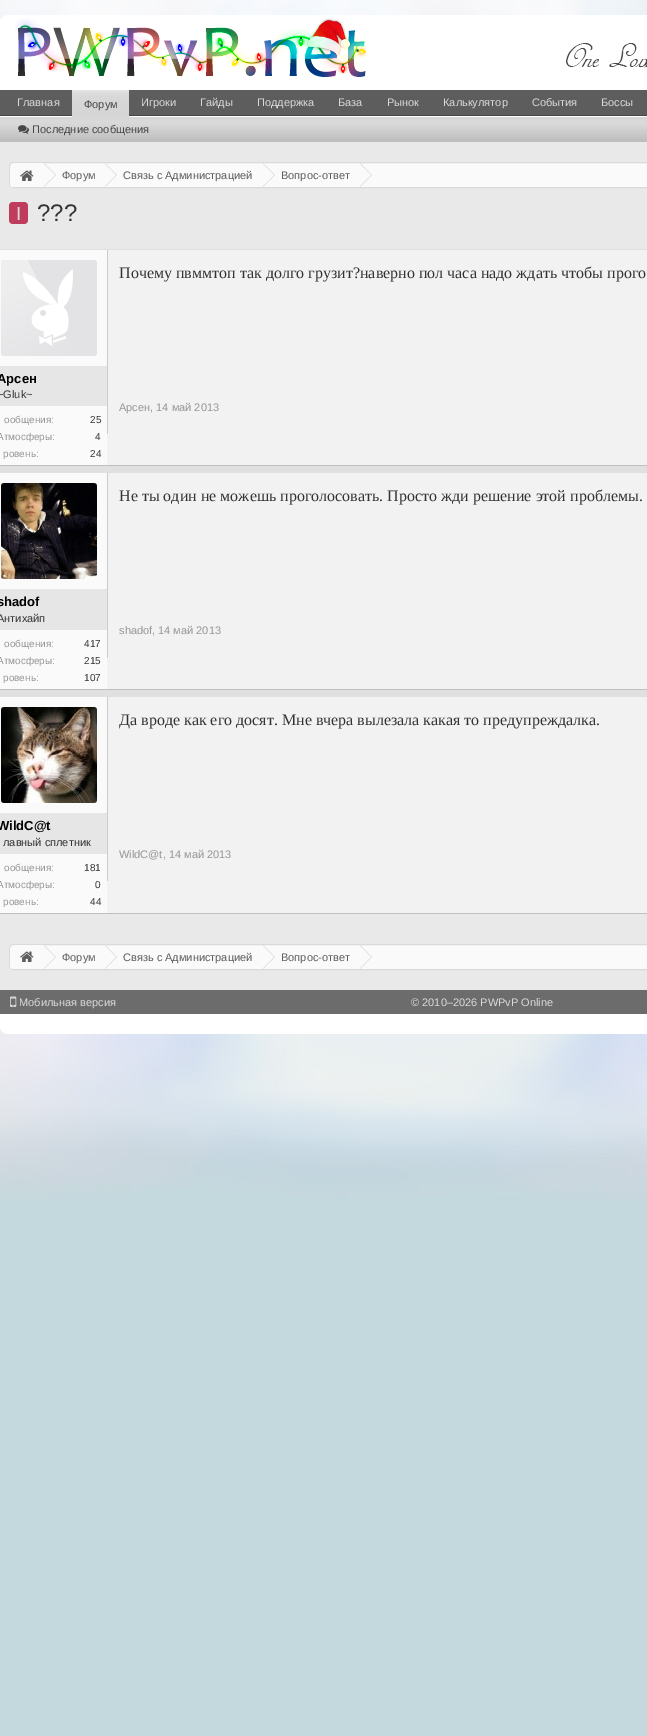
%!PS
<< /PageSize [647 1736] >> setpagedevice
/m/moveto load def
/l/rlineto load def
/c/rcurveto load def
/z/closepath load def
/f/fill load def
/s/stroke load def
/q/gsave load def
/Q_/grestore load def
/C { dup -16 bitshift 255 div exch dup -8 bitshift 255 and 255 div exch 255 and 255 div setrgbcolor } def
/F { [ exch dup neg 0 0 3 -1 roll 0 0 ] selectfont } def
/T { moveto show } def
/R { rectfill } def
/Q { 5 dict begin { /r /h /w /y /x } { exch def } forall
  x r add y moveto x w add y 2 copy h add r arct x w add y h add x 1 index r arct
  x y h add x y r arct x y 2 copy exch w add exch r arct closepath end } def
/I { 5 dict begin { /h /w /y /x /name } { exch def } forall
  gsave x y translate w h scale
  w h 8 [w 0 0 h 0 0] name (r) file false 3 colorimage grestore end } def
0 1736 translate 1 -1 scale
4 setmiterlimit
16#C4D9DE C
0 0 647 1736 R
(1.rgb) 0 0 647 1200 I
16#FFFFFF C
8 15 m 639 0 l 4.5 0 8 3.5 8 8 c 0 67 l -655 0 l 0 -67 l 0 -4.5 3.5 -8 8 -8 c z f
(2.rgb) 15 18 353 59 I
(3.rgb) 566 43 81 25 I
0 116 647 1 R
16#5D5D5D C
0 90 647 25 R
16#464646 C
0 115 647 1 R
/LiberationSans-Regular 11 F
16#DADADA C
(Главная) 17 106 T
(Игроки) 141 106 T
(Гайды) 200 106 T
(Поддержка) 257 106 T
(База) 338 106 T
(Рынок) 387 106 T
(Калькулятор) 443 106 T
(События) 532 106 T
(Боссы) 601 106 T
16#BEBEBE C
72 90 57 27 R
(4.rgb) 72 90 57 27 I
16#464646 C
(Форум) 84 108 T
16#BEBEBE C
0 117 647 25 R
(5.rgb) 0 117 647 22 I
(6.rgb) 18 125 11 9 I
16#464646 C
(Последние сообщения) 32 133 T
16#E9E9E9 C
0 142 647 848 R
16#FAFAFA C
9.5 162.5 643 25 4.5 Q q f Q_
16#DADADA C
s
q
10 163 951 24 4 Q clip newpath
16#FAFAFA C
15 163 m 29 0 l 0 25 l -29 0 l -3 0 -5 -2 -5 -5 c 0 -15 l 0 -3 2 -5 5 -5 c z f
Q_
(7.rgb) 20 170 14 11 I
44 187 m 0 -24 l 12 12 l z f
16#FAFAFA C
43 187 m 0 -24 l 12 12 l z f
16#5D5D5D C
(Форум) 62 179 T
16#DADADA C
105 187 m 0 -24 l 12 12 l z f
16#FAFAFA C
104 187 m 0 -24 l 12 12 l z f
16#5D5D5D C
(Связь с Администрацией) 123 179 T
16#DADADA C
263 187 m 0 -24 l 12 12 l z f
16#FAFAFA C
262 187 m 0 -24 l 12 12 l z f
16#5D5D5D C
(Вопрос-ответ) 281 179 T
16#DADADA C
360 187 m 0 -24 l 12 12 l z f
16#FAFAFA C
359 187 m 0 -24 l 12 12 l z f
16#C03C5C C
9 202 19 22 4 Q f
/LiberationSans-Regular 19 F
16#DADADA C
(I) 16 220 T
/LiberationSans-Regular 24 F
16#333333 C
(???) 37 221 T
16#F2F2F2 C
107 250 540 215 R
16#E0E0E0 C
0 249 647 1 R
16#BFBFBF C
0 465 647 1 R
16#E6E6E6 C
0 366 107 40 R
16#FAFAFA C
0 250 107 116 R
(8.rgb) 1 260 96 96 I
/LiberationSans-Bold 13 F
16#000000 C
(Арсен) -3 383 T
/LiberationSans-Regular 11 F
16#333333 C
(~Gluk~) -3 398 T
16#FAFAFA C
0 406 107 59 R
/LiberationSans-Regular 10 F
16#969696 C
(ообщения:) 4 423 T
16#333333 C
(25) 90 423 T
16#969696 C
(Атмосферы:) -3 440 T
16#333333 C
(4) 95 440 T
16#969696 C
(ровень:) 3 457 T
16#333333 C
(24) 90 457 T
16#CCCCCC C
107 250 1 184 R
/LiberationSerif-Regular 16 F
16#333333 C
(Почему пвммтоп так долго грузит?наверно пол часа надо ждать чтобы прого) 119 278 T
/LiberationSans-Regular 11 F
16#969696 C
(Арсен, 14 май 2013) 119 411 T
16#F2F2F2 C
107 473 540 216 R
16#E0E0E0 C
0 466 647 7 R
16#BFBFBF C
0 689 647 1 R
16#E6E6E6 C
0 589 107 41 R
16#FAFAFA C
0 473 107 116 R
(9.rgb) 1 483 96 96 I
/LiberationSans-Bold 13 F
16#000000 C
(shadof) -3 606 T
/LiberationSans-Regular 11 F
16#333333 C
(Антихайп) -3 622 T
16#FAFAFA C
0 630 107 59 R
/LiberationSans-Regular 10 F
16#969696 C
(ообщения:) 4 647 T
16#333333 C
(417) 84 647 T
16#969696 C
(Атмосферы:) -3 664 T
16#333333 C
(215) 84 664 T
16#969696 C
(ровень:) 3 681 T
16#333333 C
(107) 84 681 T
16#CCCCCC C
107 473 1 185 R
/LiberationSerif-Regular 16 F
16#333333 C
(Не ты один не можешь проголосовать. Просто жди решение этой проблемы.) 119 501 T
/LiberationSans-Regular 11 F
16#969696 C
(shadof, 14 май 2013) 119 634 T
16#F2F2F2 C
107 697 540 216 R
16#E0E0E0 C
0 690 647 7 R
16#BFBFBF C
0 913 647 1 R
16#E6E6E6 C
0 813 107 41 R
16#FAFAFA C
0 697 107 116 R
(10.rgb) 1 707 96 96 I
/LiberationSans-Bold 13 F
16#000000 C
(WildC@t) -3 830 T
/LiberationSans-Regular 11 F
16#333333 C
(лавный сплетник) 3 846 T
16#FAFAFA C
0 854 107 59 R
/LiberationSans-Regular 10 F
16#969696 C
(ообщения:) 4 871 T
16#333333 C
(181) 84 871 T
16#969696 C
(Атмосферы:) -3 888 T
16#333333 C
(0) 95 888 T
16#969696 C
(ровень:) 3 905 T
16#333333 C
(44) 90 905 T
16#CCCCCC C
107 697 1 184 R
/LiberationSerif-Regular 16 F
16#333333 C
(Да вроде как его досят. Мне вчера вылезала какая то предупреждалка.) 119 725 T
/LiberationSans-Regular 11 F
16#969696 C
(WildC@t, 14 май 2013) 119 858 T
16#FAFAFA C
9.5 944.5 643 25 4.5 Q q f Q_
16#DADADA C
s
q
10 945 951 24 4 Q clip newpath
16#FAFAFA C
15 945 m 29 0 l 0 25 l -29 0 l -3 0 -5 -2 -5 -5 c 0 -15 l 0 -3 2 -5 5 -5 c z f
Q_
(7.rgb) 20 951 14 11 I
44 969 m 0 -24 l 12 12 l z f
16#FAFAFA C
43 969 m 0 -24 l 12 12 l z f
16#5D5D5D C
(Форум) 62 961 T
16#DADADA C
105 969 m 0 -24 l 12 12 l z f
16#FAFAFA C
104 969 m 0 -24 l 12 12 l z f
16#5D5D5D C
(Связь с Администрацией) 123 961 T
16#DADADA C
263 969 m 0 -24 l 12 12 l z f
16#FAFAFA C
262 969 m 0 -24 l 12 12 l z f
16#5D5D5D C
(Вопрос-ответ) 281 961 T
16#DADADA C
360 969 m 0 -24 l 12 12 l z f
16#FAFAFA C
359 969 m 0 -24 l 12 12 l z f
16#6C6C6C C
0 990 647 24 R
(11.rgb) 10 996 7 11 I
16#DADADA C
(Мобильная версия) 19 1006 T
(© 2010–2026 PWPvP Online) 411 1006 T
16#FFFFFF C
0 1014 m 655 0 l 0 12 l 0 4.5 -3.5 8 -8 8 c -639 0 l -4.5 0 -8 -3.5 -8 -8 c z f
showpage
